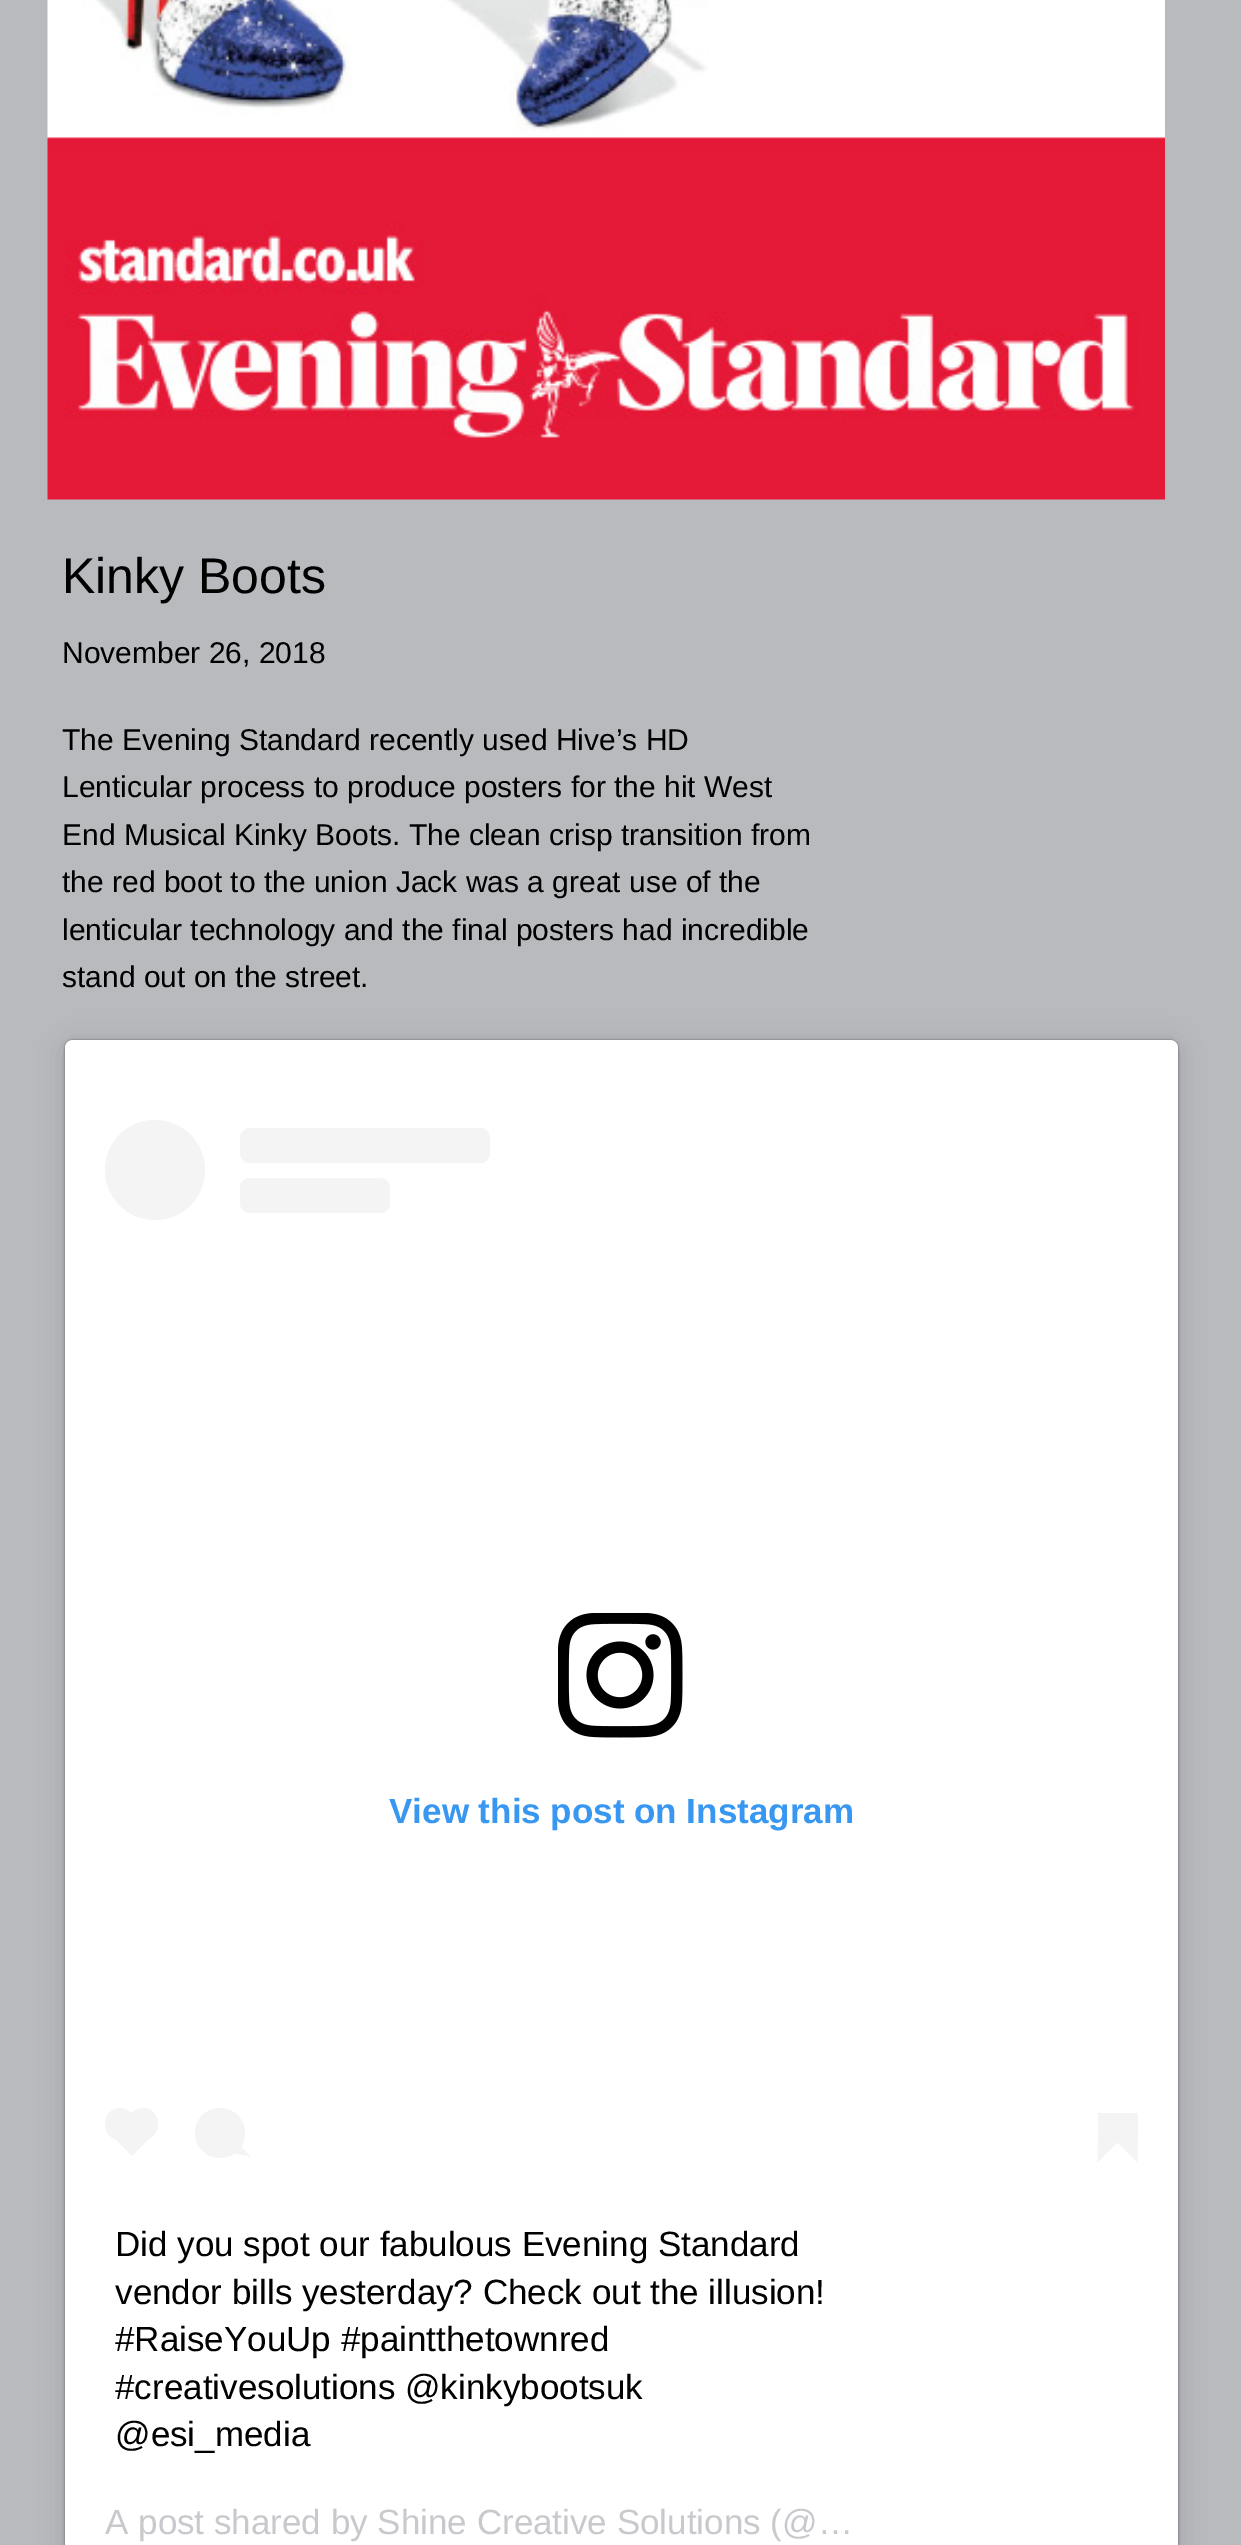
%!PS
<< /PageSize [1241 2545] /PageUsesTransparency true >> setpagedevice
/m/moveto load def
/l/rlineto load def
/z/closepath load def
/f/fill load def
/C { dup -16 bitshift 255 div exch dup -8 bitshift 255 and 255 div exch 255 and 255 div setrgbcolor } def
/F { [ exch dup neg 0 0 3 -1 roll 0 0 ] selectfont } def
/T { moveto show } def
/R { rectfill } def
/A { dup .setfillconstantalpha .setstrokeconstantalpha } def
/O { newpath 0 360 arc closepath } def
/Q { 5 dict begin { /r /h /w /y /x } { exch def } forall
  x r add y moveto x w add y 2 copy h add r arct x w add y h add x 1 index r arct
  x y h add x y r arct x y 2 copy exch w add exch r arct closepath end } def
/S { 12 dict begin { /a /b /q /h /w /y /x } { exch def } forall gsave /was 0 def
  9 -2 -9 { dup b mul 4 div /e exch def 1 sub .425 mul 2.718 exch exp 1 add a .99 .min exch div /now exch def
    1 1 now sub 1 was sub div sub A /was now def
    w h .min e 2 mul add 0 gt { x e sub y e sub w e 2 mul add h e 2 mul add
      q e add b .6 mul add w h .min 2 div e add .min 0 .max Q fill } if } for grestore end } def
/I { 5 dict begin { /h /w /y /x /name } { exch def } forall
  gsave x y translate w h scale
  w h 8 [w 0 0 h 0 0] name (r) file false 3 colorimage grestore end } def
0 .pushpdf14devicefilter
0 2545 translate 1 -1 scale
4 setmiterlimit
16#B9BABE C
0 0 1241 2545 R
(1.rgb) 47 0 1118 500 I
/LiberationSans-Regular 50 F
16#000000 C
(Kinky Boots) 62 593 T
/LiberationSans-Regular 30 F
(November 26, 2018) 62 663 T
(The Evening Standard recently used Hive’s HD) 62 750 T
(Lenticular process to produce posters for the hit West) 62 797 T
(End Musical Kinky Boots. The clean crisp transition from) 62 845 T
(the red boot to the union Jack was a great use of the) 62 892 T
(lenticular technology and the final posters had incredible) 62 940 T
(stand out on the street.) 62 987 T
65 1043 1113 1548 8 12.5 .15 S
65 1040 1113 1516 8 1 .5 S
16#FFFFFF C
65 1040 1113 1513 8 Q f
16#F4F4F4 C
155 1170 50 O f
240 1128 250 35 10 Q f
240 1178 150 35 10 Q f
(2.rgb) 558 1613 125 125 I
/LiberationSans-Bold 35 F
16#3897F0 C
(View this post on Instagram) 389 1823 T
16#F4F4F4 C
105 2108 30 32 15 Q f
110 2134 m 22 -22 l 22 22 l -22 22 l z f
128 2108 30 32 15 Q f
220 2133 25 O f
234.5 2153.5 m 5 -9 l 10.5 12 l z f
1097.5 2142.5 m 20 0 l -20 20 l z f
1098 2113 40 30 R
1117.5 2142.5 m 20 0 l 0 20 l z f
/LiberationSans-Regular 35 F
16#000000 C
(Did you spot our fabulous Evening Standard) 115 2256 T
(vendor bills yesterday? Check out the illusion!) 115 2304 T
(#RaiseYouUp #paintthetownred) 115 2351 T
(#creativesolutions @kinkybootsuk) 115 2399 T
(@esi_media) 115 2446 T
16#C9C8CD C
(A post shared by Shine Creative Solutions \(@…) 105 2534 T
.poppdf14devicefilter showpage
